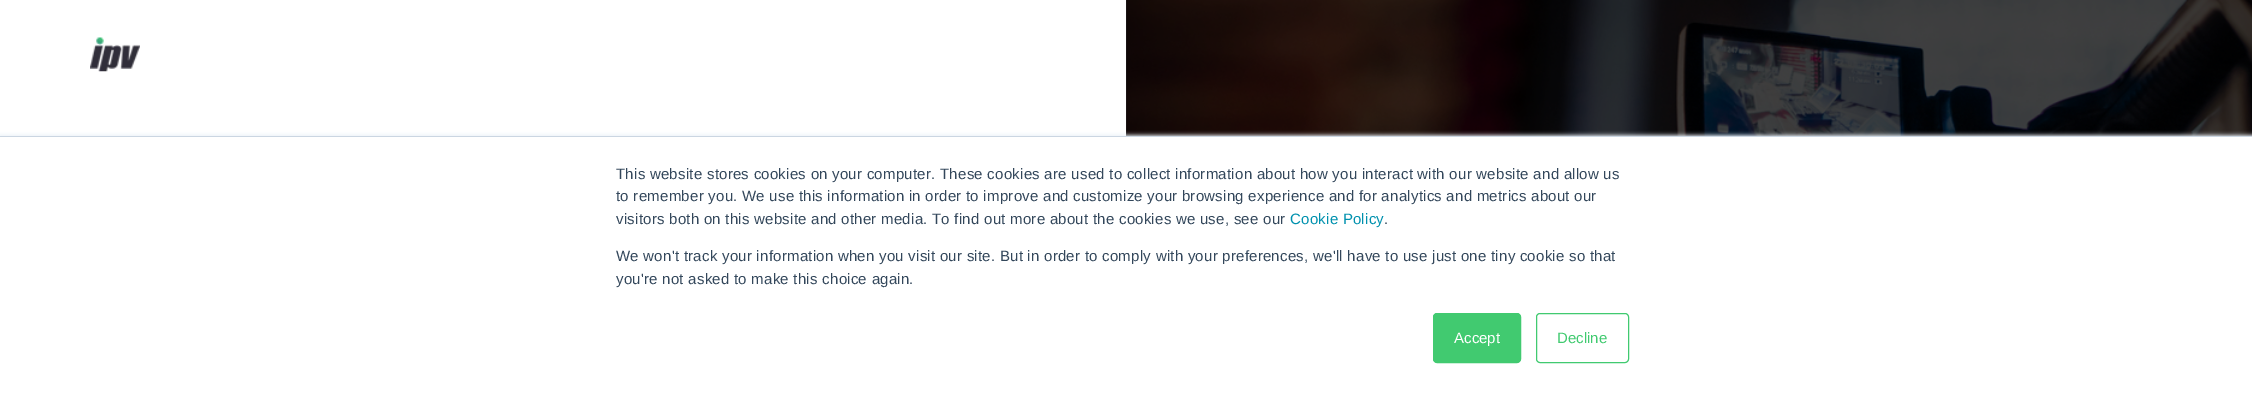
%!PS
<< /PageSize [2252 394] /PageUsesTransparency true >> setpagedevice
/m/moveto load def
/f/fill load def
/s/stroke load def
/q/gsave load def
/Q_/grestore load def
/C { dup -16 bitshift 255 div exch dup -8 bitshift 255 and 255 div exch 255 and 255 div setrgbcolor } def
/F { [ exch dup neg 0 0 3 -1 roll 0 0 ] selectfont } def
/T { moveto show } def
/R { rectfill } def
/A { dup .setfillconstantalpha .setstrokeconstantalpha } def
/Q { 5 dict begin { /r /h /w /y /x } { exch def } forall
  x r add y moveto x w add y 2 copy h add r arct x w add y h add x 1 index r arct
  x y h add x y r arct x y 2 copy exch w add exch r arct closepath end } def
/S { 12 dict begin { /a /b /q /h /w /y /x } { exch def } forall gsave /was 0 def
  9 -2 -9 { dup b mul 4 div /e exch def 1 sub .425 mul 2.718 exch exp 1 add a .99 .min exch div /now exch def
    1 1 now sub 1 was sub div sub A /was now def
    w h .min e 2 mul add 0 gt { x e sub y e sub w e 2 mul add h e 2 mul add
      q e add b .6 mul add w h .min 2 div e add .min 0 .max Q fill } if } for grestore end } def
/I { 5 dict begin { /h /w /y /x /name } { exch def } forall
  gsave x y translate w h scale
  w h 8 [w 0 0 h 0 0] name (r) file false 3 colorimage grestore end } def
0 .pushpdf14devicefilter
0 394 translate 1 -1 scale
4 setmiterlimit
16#FFFFFF C
0 0 2252 394 R
(1.rgb) 90 37 50 35 I
(2.rgb) 1126 0 1126 136 I
16#EAF0F6 C
0 135 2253 259 0 2 1 S
16#FFFFFF C
0 137 2252 257 R
16#CBD6E2 C
0 136 2252 1 R
/LiberationSans-Regular 15 F
16#33475B C
616 179 m .25 0 (This website stores cookies on your computer. These cookies are used to collect information about how you interact with our website and allow us) ashow
616 201 m .25 0 (to remember you. We use this information in order to improve and customize your browsing experience and for analytics and metrics about our) ashow
616 224 m .25 0 (visitors both on this website and other media. To find out more about the cookies we use, see our) ashow
16#0091AE C
1290 224 m .25 0 (Cookie Policy) ashow
16#33475B C
1384 224 m .25 0 (.) ashow
616 261 m .25 0 (We won't track your information when you visit our site. But in order to comply with your preferences, we'll have to use just one tiny cookie so that) ashow
616 284 m .25 0 (you're not asked to make this choice again.) ashow
16#41CA70 C
1433.5 313.5 87 49 3.5 Q q f Q_
s
16#FFFFFF C
(Accept) 1454 343 T
16#41CA70 C
1536.5 313.5 92 49 3.5 Q s
(Decline) 1557 343 T
.poppdf14devicefilter showpage
